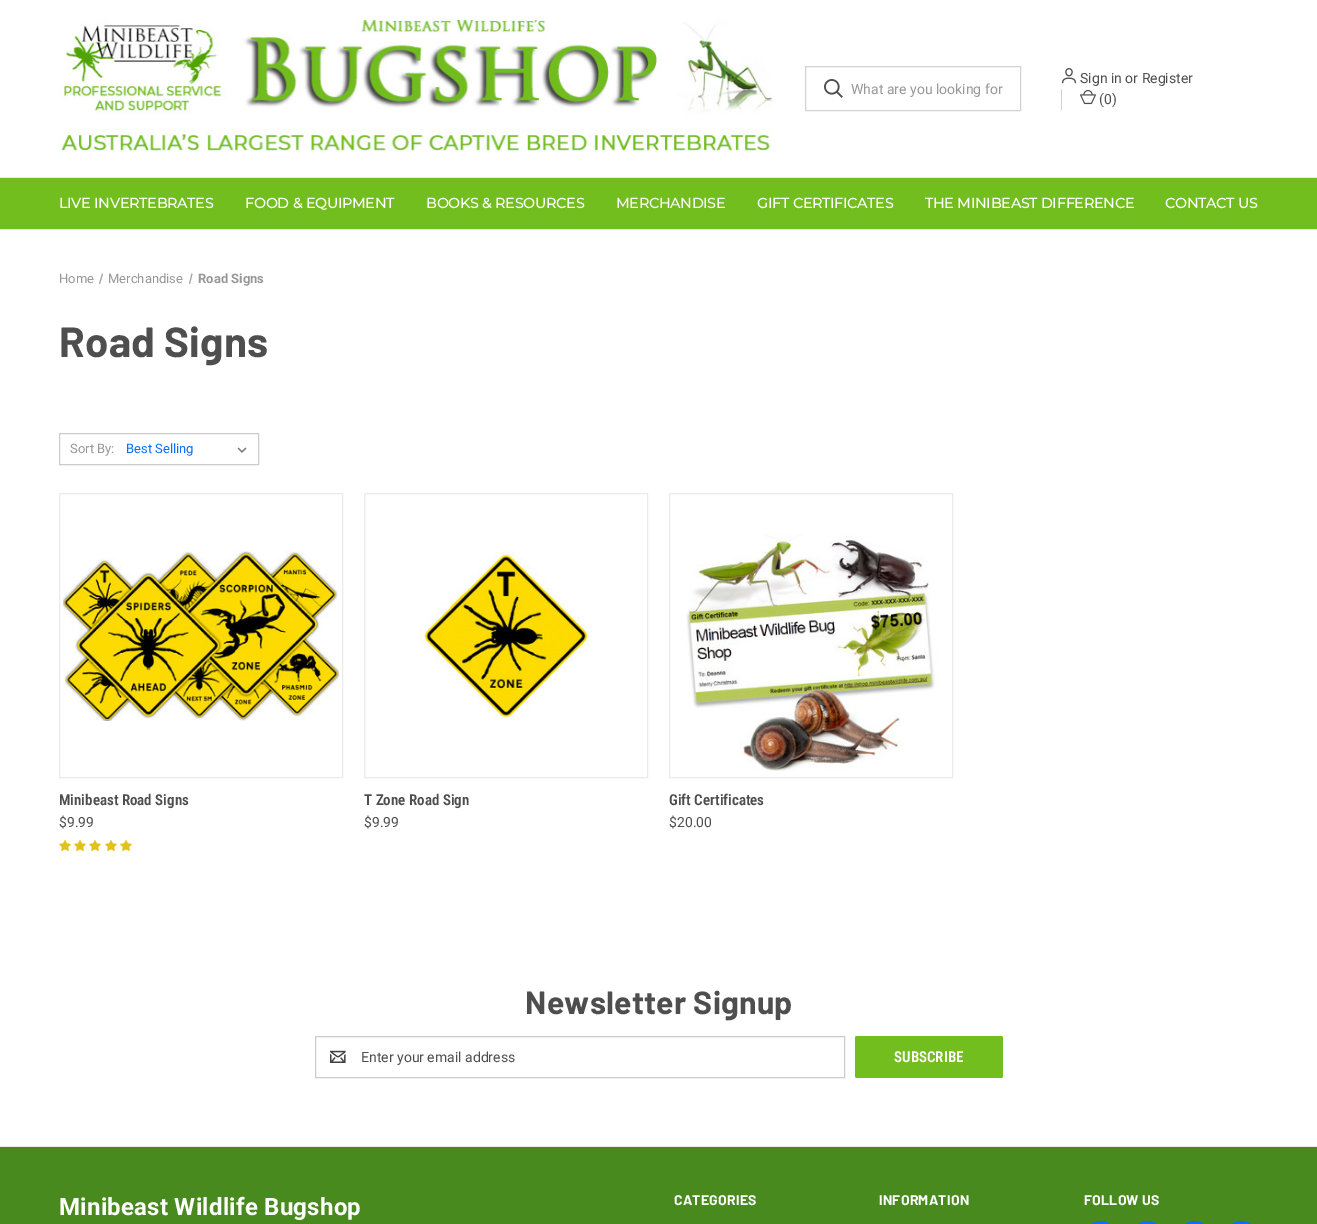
%!PS
<< /PageSize [1317 1224] >> setpagedevice
/m/moveto load def
/l/rlineto load def
/z/closepath load def
/f/fill load def
/C { dup -16 bitshift 255 div exch dup -8 bitshift 255 and 255 div exch 255 and 255 div setrgbcolor } def
/F { [ exch dup neg 0 0 3 -1 roll 0 0 ] selectfont } def
/T { moveto show } def
/R { rectfill } def
/Q { 5 dict begin { /r /h /w /y /x } { exch def } forall
  x r add y moveto x w add y 2 copy h add r arct x w add y h add x 1 index r arct
  x y h add x y r arct x y 2 copy exch w add exch r arct closepath end } def
/I { 5 dict begin { /h /w /y /x /name } { exch def } forall
  gsave x y translate w h scale
  w h 8 [w 0 0 h 0 0] name (r) file false 3 colorimage grestore end } def
0 1224 translate 1 -1 scale
4 setmiterlimit
16#FFFFFF C
0 0 1317 1224 R
(1.rgb) 59 20 714 131 I
16#D2D2D2 C
805.5 66.5 215 44 rectstroke
(2.rgb) 824 79 19 19 I
/Roboto-Regular 14 F
16#989898 C
(What are you looking for) 851 94 T
(3.rgb) 1062 68 14 16 I
16#4E4E4E C
(Sign in or Register) 1080 83 T
16#D2D2D2 C
1061 89 1 21 R
(4.rgb) 1080 90 16 15 I
16#4E4E4E C
(\(0\)) 1099 104 T
16#72BE1E C
0 178 1317 51 R
16#EBEBEB C
0 177 1317 1 R
0 229 1317 1 R
/Montserrat-Bold 14 F
16#FFFFFF C
(LIVE INVERTEBRATES) 59 208 T
(FOOD & EQUIPMENT) 245 208 T
(BOOKS & RESOURCES) 426 208 T
16#F9F9F9 C
(MERCHANDISE) 616 208 T
16#FFFFFF C
(GIFT CERTIFICATES) 757 208 T
(THE MINIBEAST DIFFERENCE) 925 208 T
(CONTACT US) 1165 208 T
/Roboto-Regular 13 F
16#989898 C
(Home) 59 283 T
16#A3A3A3 C
102 273.5 m 1 .5 l -3 10 l -1 -.5 l z f
16#989898 C
(Merchandise) 108 283 T
16#A3A3A3 C
191.5 273.5 m 1 .5 l -2.5 10 l -1 -.5 l z f
/Roboto-Bold 13 F
16#989898 C
(Road Signs) 198 283 T
/Barlow-Bold 42 F
16#4E4E4E C
59 357 m .25 0 (Road Signs) ashow
16#CCCCCC C
59.5 433.5 199 31 rectstroke
/Roboto-Regular 13 F
16#989898 C
(Sort By:) 70 453 T
(5.rgb) 237 447 10 6 I
16#0F6FF4 C
(Best Selling) 126 453 T
16#EBEBEB C
59.5 493.5 283 284 rectstroke
(6.rgb) 63 551 276 170 I
/RobotoCondensed-SemiBold 15 F
16#4E4E4E C
(Minibeast Road Signs) 59 805 T
/Roboto-Regular 14 F
($9.99) 59 827 T
(7.rgb) 59 840 12 11 I
(7.rgb) 74 840 12 11 I
(7.rgb) 89 840 12 11 I
(7.rgb) 105 840 12 11 I
(7.rgb) 120 840 12 11 I
16#EBEBEB C
364.5 493.5 283 284 rectstroke
(8.rgb) 419 551 170 169 I
/RobotoCondensed-SemiBold 15 F
16#4E4E4E C
(T Zone Road Sign) 364 805 T
/Roboto-Regular 14 F
($9.99) 364 827 T
16#EBEBEB C
669.5 493.5 283 284 rectstroke
(9.rgb) 686 534 252 237 I
/RobotoCondensed-SemiBold 15 F
16#4E4E4E C
(Gift Certificates) 669 805 T
/Roboto-Regular 14 F
($20.00) 669 827 T
/Barlow-Bold 32 F
525 1014 m .25 0 (Newsletter Signup) ashow
16#CCCCCC C
315.5 1036.5 529 41 rectstroke
(10.rgb) 330 1050 16 13 I
/Roboto-Regular 14 F
16#4E4E4E C
(Enter your email address) 361 1062 T
16#72BE1E C
855 1036 148 42 2 Q f
/RobotoCondensed-SemiBold 15 F
16#FFFFFF C
(SUBSCRIBE) 894 1062 T
16#498A1F C
0 1147 1317 77 R
16#EBEBEB C
0 1146 1317 1 R
/Roboto-Bold 24 F
16#FFFFFF C
59 1215 m .25 0 (Minibeast Wildlife Bugshop) ashow
/Barlow-Bold 14 F
674 1205 m .25 0 (CATEGORIES) ashow
879 1205 m .25 0 (INFORMATION) ashow
1084 1205 m .25 0 (FOLLOW US) ashow
16#0F6FF4 C
1084 1221 33 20 16.5 Q f
1131 1221 33 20 16.5 Q f
1178 1221 33 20 16.5 Q f
1225 1221 33 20 16.5 Q f
showpage
